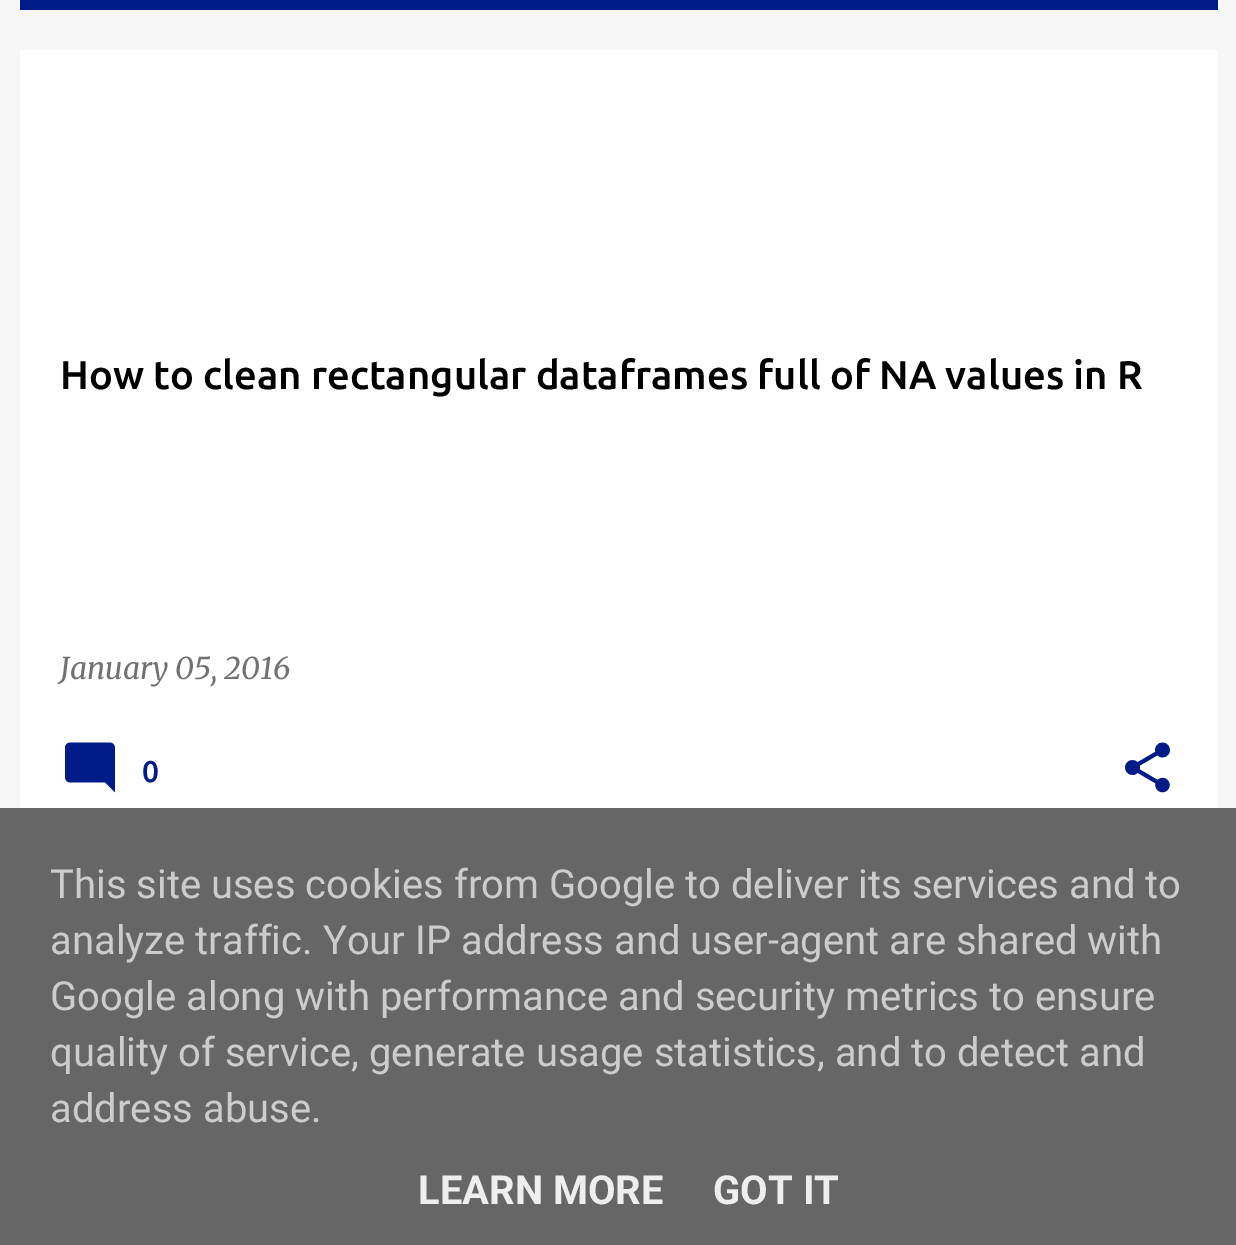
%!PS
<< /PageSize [1236 1245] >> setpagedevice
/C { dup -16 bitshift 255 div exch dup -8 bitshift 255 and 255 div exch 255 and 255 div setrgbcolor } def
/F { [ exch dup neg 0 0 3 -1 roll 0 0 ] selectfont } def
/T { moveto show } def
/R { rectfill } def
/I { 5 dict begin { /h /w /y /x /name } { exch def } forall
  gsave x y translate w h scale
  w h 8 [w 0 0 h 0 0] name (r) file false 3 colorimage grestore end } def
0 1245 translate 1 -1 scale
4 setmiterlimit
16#F6F6F6 C
0 0 1236 1245 R
16#011B88 C
20 0 1198 10 R
16#FFFFFF C
20 50 1198 758 R
/Ubuntu-Medium 40 F
16#000000 C
(How to clean rectangular dataframes full of NA values in R) 60 389 T
/Merriweather-Italic 30 F
16#717171 C
(January 05, 2016) 60 679 T
(1.rgb) 65 742 50 51 I
/Ubuntu-Medium 30 F
16#011B88 C
(0) 142 782 T
(2.rgb) 1125 742 45 51 I
16#666666 C
0 808 1236 437 R
/Roboto-Regular 40 F
16#CCCCCC C
(This site uses cookies from Google to deliver its services and to) 50 898 T
(analyze traffic. Your IP address and user-agent are shared with) 50 954 T
(Google along with performance and security metrics to ensure) 50 1010 T
(quality of service, generate usage statistics, and to detect and) 50 1066 T
(address abuse.) 50 1122 T
/Roboto-Bold 40 F
16#EEEEEE C
(LEARN MORE) 418 1204 T
(GOT IT) 713 1204 T
showpage
